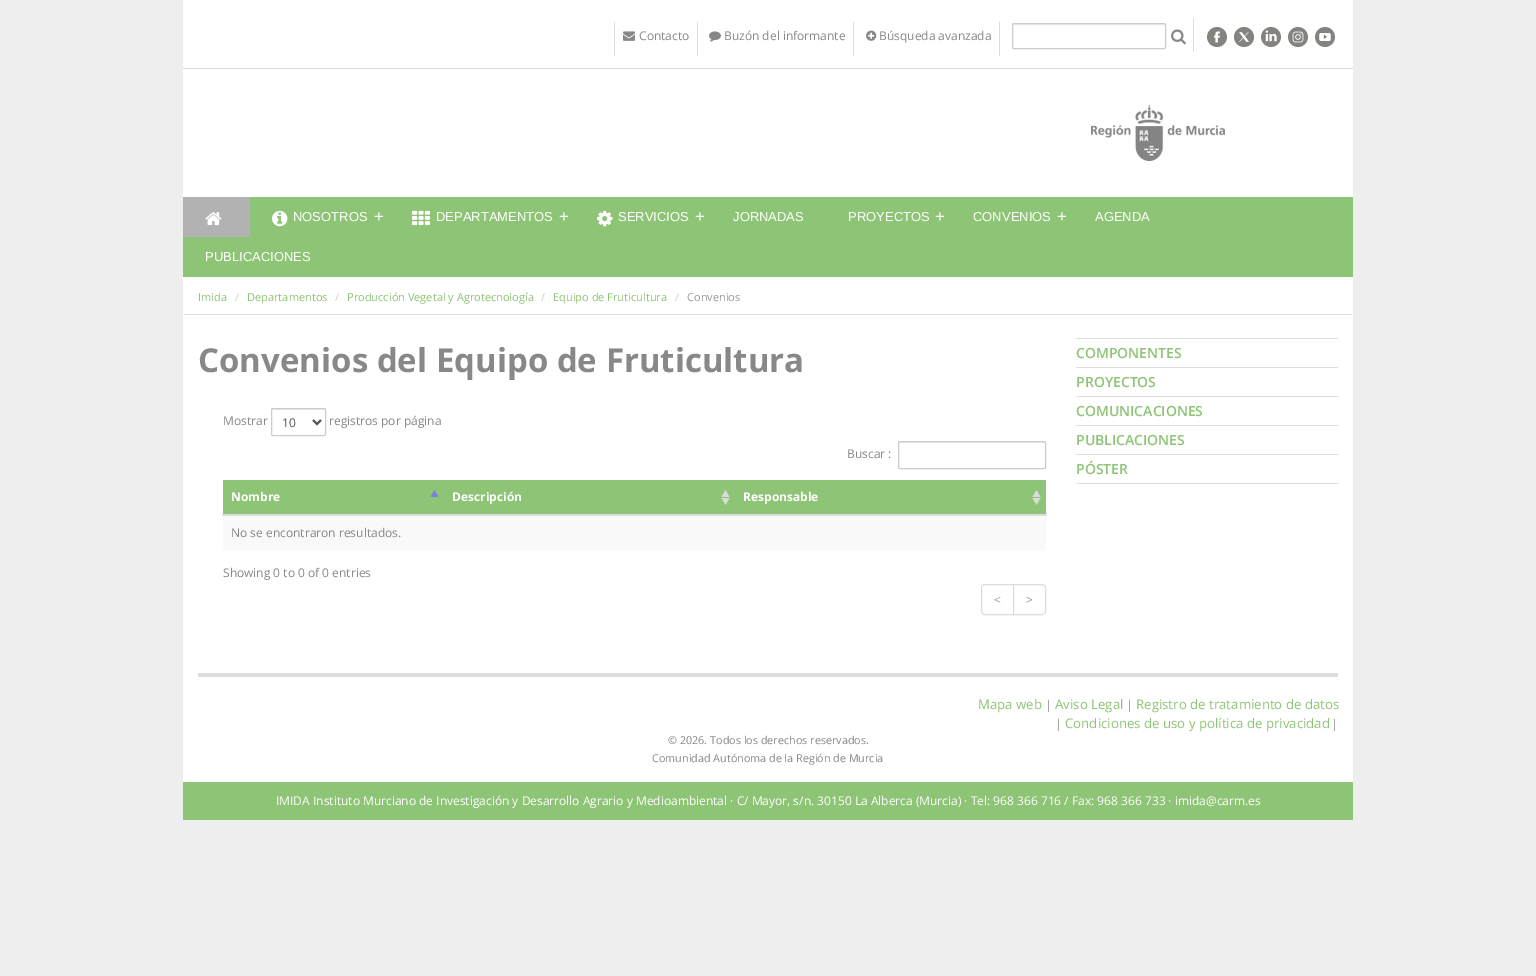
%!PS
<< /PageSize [1536 976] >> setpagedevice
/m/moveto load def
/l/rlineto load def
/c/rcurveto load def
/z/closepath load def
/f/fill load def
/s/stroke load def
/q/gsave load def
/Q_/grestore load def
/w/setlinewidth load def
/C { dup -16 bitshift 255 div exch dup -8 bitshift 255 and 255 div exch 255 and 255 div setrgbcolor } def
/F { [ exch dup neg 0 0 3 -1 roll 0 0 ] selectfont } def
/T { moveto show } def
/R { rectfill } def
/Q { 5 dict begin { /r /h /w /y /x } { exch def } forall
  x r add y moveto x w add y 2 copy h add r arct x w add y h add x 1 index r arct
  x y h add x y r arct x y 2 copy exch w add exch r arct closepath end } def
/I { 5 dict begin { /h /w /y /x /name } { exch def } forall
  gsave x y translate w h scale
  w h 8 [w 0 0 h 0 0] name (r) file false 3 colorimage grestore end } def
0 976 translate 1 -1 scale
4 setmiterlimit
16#EEEEEE C
0 0 1536 976 R
16#FFFFFF C
183 0 1170 197 R
16#DDDDDD C
183 68 1170 1 R
697 22 1 34 R
614 22 1 34 R
(1.rgb) 623 31 12 10 I
/OpenSans-Regular 12 F
16#888888 C
(Contacto) 639 40 T
16#DDDDDD C
853 22 1 34 R
(2.rgb) 709 31 12 11 I
16#888888 C
(Buzón del informante) 724 40 T
16#DDDDDD C
999 22 1 34 R
(3.rgb) 866 30 11 11 I
16#888888 C
(Búsqueda avanzada) 879 40 T
16#DDDDDD C
1193 18 1 34 R
16#ECECEC C
1014 25 m 150 0 l 1 0 1 0 1 1 c 0 -2 l -151 0 l -1 0 -1 1 -1 2 c 0 -1 0 -1 1 -1 c z f
16#CCCCCC C
1012.5 23.5 153 25 1.5 Q s
(4.rgb) 1171 29 15 16 I
(5.rgb) 1207 27 20 20 I
(6.rgb) 1234 27 20 20 I
(7.rgb) 1261 27 20 20 I
(8.rgb) 1288 27 20 20 I
(9.rgb) 1315 27 20 20 I
(10.rgb) 1091 105 134 56 I
16#FFFFFF C
183 277 1170 505 R
16#8EC475 C
183 197 1170 80 R
16#B2B2B2 C
183 197 67 40 R
(11.rgb) 205 212 17 13 I
(12.rgb) 272 210 16 17 I
/LiberationSans-Regular 13 F
16#FFFFFF C
(NOSOTROS) 293 221 T
/LiberationSans-Regular 17 F
(+) 374 222 T
(13.rgb) 412 210 18 15 I
/LiberationSans-Regular 13 F
(DEPARTAMENTOS) 436 221 T
/LiberationSans-Regular 17 F
(+) 559 222 T
(14.rgb) 597 210 16 17 I
/LiberationSans-Regular 13 F
(SERVICIOS) 618 221 T
/LiberationSans-Regular 17 F
(+) 695 222 T
/LiberationSans-Regular 13 F
(JORNADAS) 733 221 T
(PROYECTOS) 848 221 T
/LiberationSans-Regular 17 F
(+) 935 222 T
/LiberationSans-Regular 13 F
(CONVENIOS) 973 221 T
/LiberationSans-Regular 17 F
(+) 1057 222 T
/LiberationSans-Regular 13 F
(AGENDA) 1095 221 T
(PUBLICACIONES) 205 261 T
16#DDDDDD C
184 314 1168 1 R
/OpenSans-Regular 11 F
16#8EC475 C
(Imida) 198 301 T
16#CCCCCC C
(/) 235 301 T
16#8EC475 C
(Departamentos) 247 301 T
16#CCCCCC C
(/) 335 301 T
16#8EC475 C
(Producción Vegetal y Agrotecnología) 347 301 T
16#CCCCCC C
(/) 541 301 T
16#8EC475 C
(Equipo de Fruticultura) 553 301 T
16#CCCCCC C
(/) 675 301 T
16#999999 C
(Convenios) 687 301 T
/OpenSans-Bold 33 F
16#888888 C
(Convenios del Equipo de Fruticultura) 198 372 T
/OpenSans-Regular 12 F
(Mostrar) 223 425 T
16#ECECEC C
273 410 m 52 0 l 0 1 l 0 -4 -6 -2 -9 -2 c -34 0 l -4 0 -10 -2 -10 2 c 0 -1 0 -1 1 -1 c z f
16#CCCCCC C
271.5 408.5 54 27 1.5 Q s
16#555555 C
2 w
313 420 m 4 4 l 4 -4 l s
(10) 282 427 T
16#888888 C
(registros por página) 329 425 T
(Buscar :) 847 458 T
16#ECECEC C
900 443 m 144 0 l 1 0 1 0 1 1 c 0 -1 0 -2 -1 -2 c -145 0 l 0 2 l 0 -1 0 -1 1 -1 c z f
16#CCCCCC C
1 w
898.5 441.5 147 27 1.5 Q s
16#8EC475 C
223 480 823 34 R
(15.rgb) 430 490 9 7 I
/OpenSans-Bold 12 F
16#FFFFFF C
(Nombre) 231 501 T
(16.rgb) 721 490 9 15 I
(Descripción) 452 501 T
(16.rgb) 1032 490 9 15 I
16#DDDDDD C
222 514 825 2 R
16#FFFFFF C
(Responsable) 743 501 T
16#F9F9F9 C
223 516 823 34 R
/OpenSans-Regular 12 F
16#888888 C
(No se encontraron resultados.) 231 537 T
(Showing 0 to 0 of 0 entries) 223 577 T
16#DDDDDD C
985 584.5 m 28.5 0 l 0 30 l -28.5 0 l -2 0 -3.5 -1.5 -3.5 -3.5 c 0 -23 l 0 -2 1.5 -3.5 3.5 -3.5 c z s
16#999999 C
(<) 994 604 T
16#FFFFFF C
1013.5 584.5 m 28.5 0 l 2 0 3.5 1.5 3.5 3.5 c 0 23 l 0 2 -1.5 3.5 -3.5 3.5 c -28.5 0 l z q f Q_
16#DDDDDD C
s
16#999999 C
(>) 1026 604 T
16#DDDDDD C
1076 483 262 1 R
1076 338 262 1 R
/OpenSans-SemiBold 14 F
16#8EC475 C
(COMPONENTES) 1076 358 T
16#DDDDDD C
1076 367 262 1 R
16#8EC475 C
(PROYECTOS) 1076 387 T
16#DDDDDD C
1076 396 262 1 R
16#8EC475 C
(COMUNICACIONES) 1076 416 T
16#DDDDDD C
1076 425 262 1 R
16#8EC475 C
(PUBLICACIONES) 1076 445 T
16#DDDDDD C
1076 454 262 1 R
16#8EC475 C
(PÓSTER) 1076 474 T
16#DDDDDD C
198 673 1140 4 R
/OpenSans-Regular 13.25 F
16#8EC475 C
(Mapa web) 978 709 T
/OpenSans-Regular 12 F
16#888888 C
(|) 1045 709 T
/OpenSans-Regular 13.25 F
16#8EC475 C
(Aviso Legal) 1055 709 T
/OpenSans-Regular 12 F
16#888888 C
(|) 1126 709 T
/OpenSans-Regular 13.25 F
16#8EC475 C
(Registro de tratamiento de datos) 1136 709 T
/OpenSans-Regular 12 F
16#888888 C
(|) 1055 728 T
/OpenSans-Regular 13.25 F
16#8EC475 C
(Condiciones de uso y política de privacidad) 1065 728 T
/OpenSans-Regular 12 F
16#888888 C
(|) 1331 728 T
/OpenSans-Regular 10.8 F
(© 2026. Todos los derechos reservados.) 668 744 T
(Comunidad Autónoma de la Región de Murcia) 652 762 T
16#8EC475 C
183 782 1170 38 R
/OpenSans-Regular 12 F
16#FFFFFF C
(IMIDA Instituto Murciano de Investigación y Desarrollo Agrario y Medioambiental · C/ Mayor, s/n. 30150 La Alberca \(Murcia\) · Tel: 968 366 716 / Fax: 968 366 733 · imida@carm.es) 276 805 T
showpage
